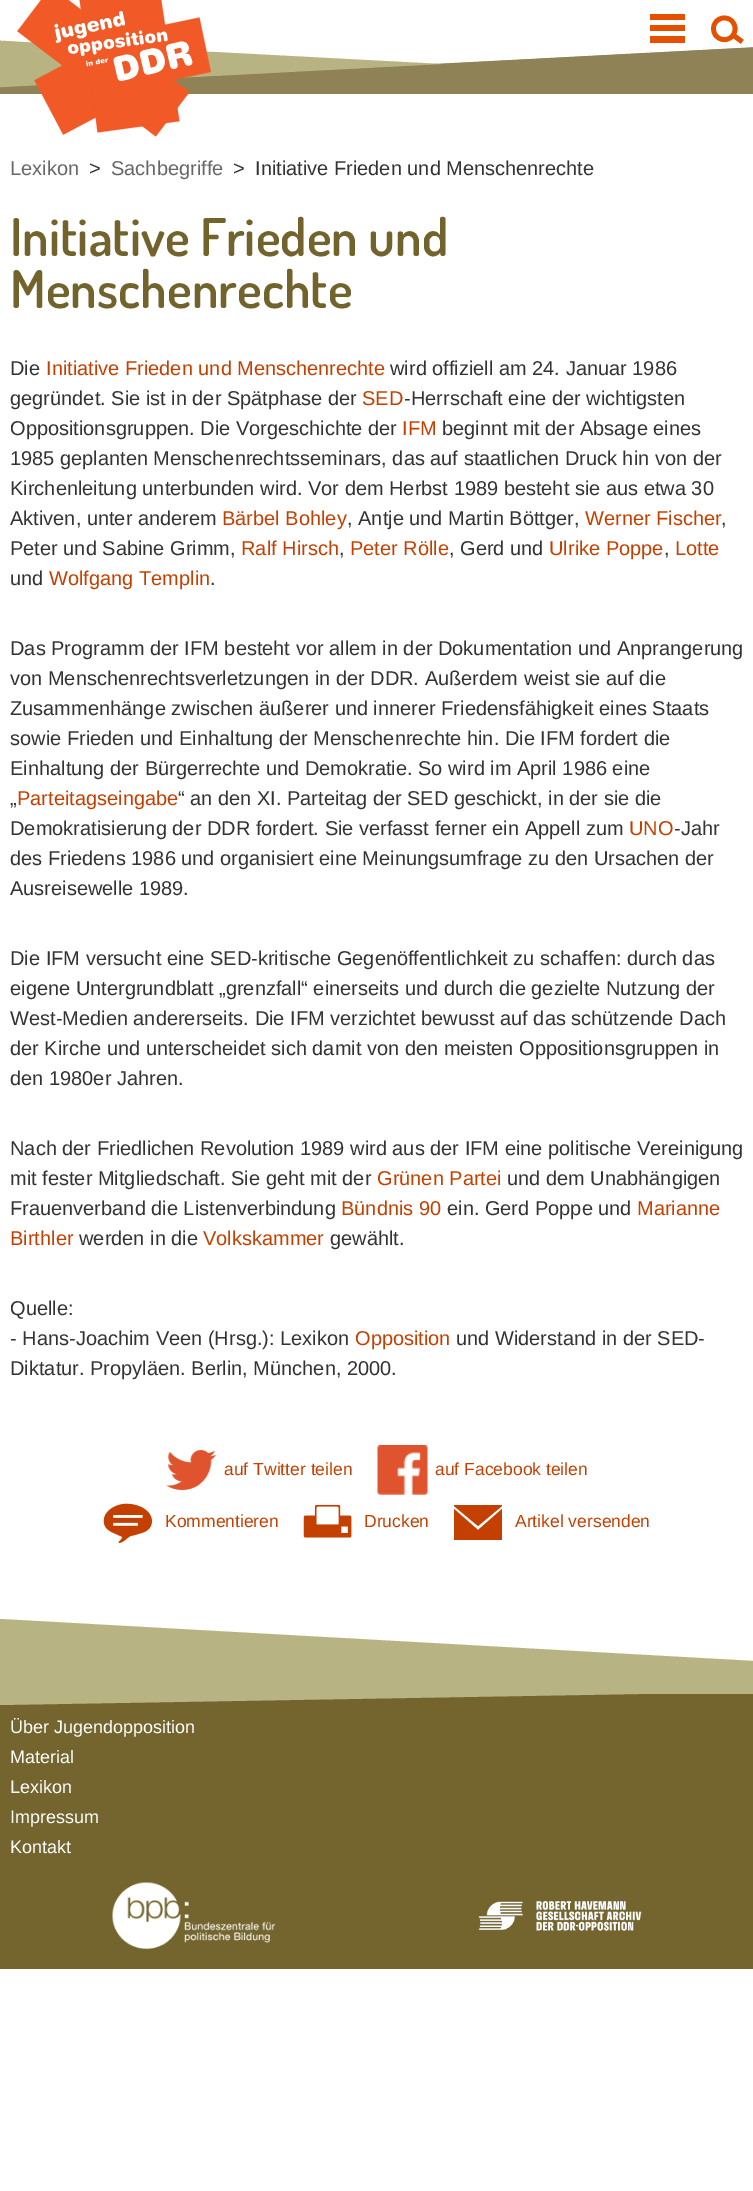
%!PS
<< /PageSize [753 2191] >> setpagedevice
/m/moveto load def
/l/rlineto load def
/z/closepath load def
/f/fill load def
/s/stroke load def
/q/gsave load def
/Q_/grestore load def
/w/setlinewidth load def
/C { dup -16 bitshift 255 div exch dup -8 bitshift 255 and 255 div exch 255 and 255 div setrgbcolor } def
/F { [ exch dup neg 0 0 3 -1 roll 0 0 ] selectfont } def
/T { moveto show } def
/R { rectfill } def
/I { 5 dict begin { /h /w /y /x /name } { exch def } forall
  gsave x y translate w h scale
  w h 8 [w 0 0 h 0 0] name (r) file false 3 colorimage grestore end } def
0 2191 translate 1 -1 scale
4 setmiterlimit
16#FFFFFF C
0 0 753 2191 R
16#8E8256 C
0 47 753 47 R
16#FFFFFF C
-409 -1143 m 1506 -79 l 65 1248 l -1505 79 l z f
16#8E8256 C
1.3 w
-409 -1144 m 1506.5 -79 l 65.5 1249.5 l -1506.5 79 l z s
16#B8B382 C
-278 26 m 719 38 l -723 38 l z f
(1.rgb) 16 0 196 137 I
16#E45000 C
650 14 35 6 R
650 25 35 6 R
650 36 35 7 R
/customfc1-Medium 34 F
(d) 711 40 T
/LiberationSans-Regular 20 F
16#676767 C
(Lexikon) 10 175 T
16#333333 C
(>) 89 175 T
16#676767 C
(Sachbegriffe) 111 175 T
16#333333 C
(>) 233 175 T
(Initiative Frieden und Menschenrechte) 255 175 T
/Dosis-SemiBold 52 F
16#72632C C
(Initiative Frieden und) 10 256 T
(Menschenrechte) 10 308 T
/LiberationSans-Regular 20 F
16#333333 C
(Die) 10 375 T
16#C44000 C
(Initiative Frieden und Menschenrechte) 46 375 T
16#333333 C
(wird offiziell am 24. Januar 1986) 390 375 T
(gegründet. Sie ist in der Spätphase der) 10 405 T
16#C44000 C
(SED) 362 405 T
16#333333 C
(-Herrschaft eine der wichtigsten) 404 405 T
(Oppositionsgruppen. Die Vorgeschichte der) 10 435 T
16#C44000 C
(IFM) 402 435 T
16#333333 C
(beginnt mit der Absage eines) 442 435 T
(1985 geplanten Menschenrechtsseminars, das auf staatlichen Druck hin von der) 10 465 T
(Kirchenleitung unterbunden wird. Vor dem Herbst 1989 besteht sie aus etwa 30) 10 495 T
(Aktiven, unter anderem) 10 525 T
16#C44000 C
(Bärbel Bohley) 222 525 T
16#333333 C
(, Antje und Martin Böttger,) 347 525 T
16#C44000 C
(Werner Fischer) 585 525 T
16#333333 C
(,) 721 525 T
(Peter und Sabine Grimm,) 10 555 T
16#C44000 C
(Ralf Hirsch) 241 555 T
16#333333 C
(,) 339 555 T
16#C44000 C
(Peter Rölle) 350 555 T
16#333333 C
(, Gerd und) 449 555 T
16#C44000 C
(Ulrike Poppe) 549 555 T
16#333333 C
(,) 664 555 T
16#C44000 C
(Lotte) 675 555 T
16#333333 C
(und) 10 585 T
16#C44000 C
(Wolfgang Templin) 49 585 T
16#333333 C
(.) 210 585 T
(Das Programm der IFM besteht vor allem in der Dokumentation und Anprangerung) 10 655 T
(von Menschenrechtsverletzungen in der DDR. Außerdem weist sie auf die) 10 685 T
(Zusammenhänge zwischen äußerer und innerer Friedensfähigkeit eines Staats) 10 715 T
(sowie Frieden und Einhaltung der Menschenrechte hin. Die IFM fordert die) 10 745 T
(Einhaltung der Bürgerrechte und Demokratie. So wird im April 1986 eine) 10 775 T
(„) 10 805 T
16#C44000 C
(Parteitagseingabe) 17 805 T
16#333333 C
(“ an den XI. Parteitag der SED geschickt, in der sie die) 178 805 T
(Demokratisierung der DDR fordert. Sie verfasst ferner ein Appell zum) 10 835 T
16#C44000 C
(UNO) 629 835 T
16#333333 C
(-Jahr) 674 835 T
(des Friedens 1986 und organisiert eine Meinungsumfrage zu den Ursachen der) 10 865 T
(Ausreisewelle 1989.) 10 895 T
(Die IFM versucht eine SED-kritische Gegenöffentlichkeit zu schaffen: durch das) 10 965 T
(eigene Untergrundblatt „grenzfall“ einerseits und durch die gezielte Nutzung der) 10 995 T
(West-Medien andererseits. Die IFM verzichtet bewusst auf das schützende Dach) 10 1025 T
(der Kirche und unterscheidet sich damit von den meisten Oppositionsgruppen in) 10 1055 T
(den 1980er Jahren.) 10 1085 T
(Nach der Friedlichen Revolution 1989 wird aus der IFM eine politische Vereinigung) 10 1155 T
(mit fester Mitgliedschaft. Sie geht mit der) 10 1185 T
16#C44000 C
(Grünen Partei) 377 1185 T
16#333333 C
(und dem Unabhängigen) 507 1185 T
(Frauenverband die Listenverbindung) 10 1215 T
16#C44000 C
(Bündnis 90) 341 1215 T
16#333333 C
(ein. Gerd Poppe und) 447 1215 T
16#C44000 C
(Marianne) 637 1215 T
(Birthler) 10 1245 T
16#333333 C
(werden in die) 79 1245 T
16#C44000 C
(Volkskammer) 203 1245 T
16#333333 C
(gewählt.) 330 1245 T
(Quelle:) 10 1315 T
(- Hans-Joachim Veen \(Hrsg.\): Lexikon) 10 1345 T
16#C44000 C
(Opposition) 355 1345 T
16#333333 C
(und Widerstand in der SED-) 456 1345 T
(Diktatur. Propyläen. Berlin, München, 2000.) 10 1375 T
(2.rgb) 166 1450 51 40 I
/LiberationSans-Regular 17.5 F
16#C44000 C
(auf Twitter teilen) 224 1475 T
(3.rgb) 377 1445 51 50 I
(auf Facebook teilen) 435 1475 T
(4.rgb) 103 1503 49 40 I
(Kommentieren) 165 1527 T
(5.rgb) 303 1504 49 34 I
(Drucken) 364 1527 T
454 1506 m 24 20 l 24 -20 l 0 -1 l -48 0 l z 454 1540 m 48 0 l 0 -31 l -24 21 l -24 -21 l z f
(Artikel versenden) 515 1527 T
16#B8B382 C
0 1619 m 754 42 l 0 33 l -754 0 l f
16#74652E C
0 1694 753 275 R
q
0 1693 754 12 rectclip
16#B8B382 C
0 1692 m 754 0 l -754 13 l f
Q_
/LiberationSans-Regular 18 F
16#FFFFFF C
(Über Jugendopposition) 10 1733 T
(Material) 10 1763 T
(Lexikon) 10 1793 T
(Impressum) 10 1823 T
(Kontakt) 10 1853 T
(6.rgb) 112 1882 163 67 I
(7.rgb) 478 1901 164 30 I
showpage
